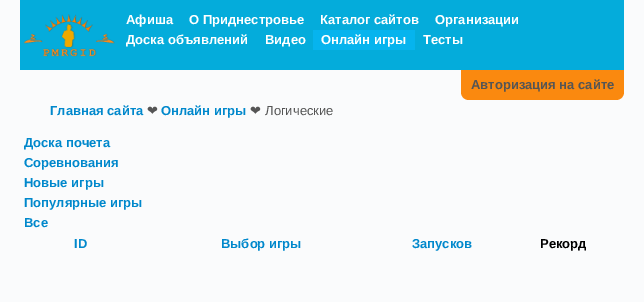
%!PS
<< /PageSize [644 302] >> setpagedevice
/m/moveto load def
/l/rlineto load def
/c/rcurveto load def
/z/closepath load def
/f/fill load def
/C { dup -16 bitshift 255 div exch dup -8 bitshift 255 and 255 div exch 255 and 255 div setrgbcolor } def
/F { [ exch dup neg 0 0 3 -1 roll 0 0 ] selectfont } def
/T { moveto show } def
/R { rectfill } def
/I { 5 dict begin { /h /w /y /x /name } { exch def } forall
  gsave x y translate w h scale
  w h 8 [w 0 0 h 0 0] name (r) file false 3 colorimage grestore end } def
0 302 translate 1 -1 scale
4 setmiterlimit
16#FAFBFC C
0 0 644 302 R
16#04ACDB C
20 0 604 70 R
(1.rgb) 23 14 92 43 I
/LiberationSans-Bold 13 F
16#FFFFFF C
(Афиша) 126 24 T
(О Приднестровье) 189 24 T
(Каталог сайтов) 320 24 T
(Организации) 435 24 T
(Доска объявлений) 126 44 T
(Видео) 265 44 T
16#06B4EE C
313 30 102 20 R
16#FFFFFF C
(Онлайн игры) 321 44 T
(Тесты) 423 44 T
16#FA890F C
461 70 m 163 0 l 0 22 l 0 4.5 -3.5 8 -8 8 c -147 0 l -4.5 0 -8 -3.5 -8 -8 c z f
16#555555 C
(Авторизация на сайте) 471 89 T
16#0088CC C
(Главная сайта) 50 115 T
/DejaVuSans-Regular 13 F
16#555555 C
(❤) 147 115 T
/LiberationSans-Bold 13 F
16#0088CC C
(Онлайн игры) 161 115 T
/DejaVuSans-Regular 13 F
16#555555 C
(❤) 250 115 T
/LiberationSans-Regular 13 F
(Логические) 265 115 T
/LiberationSans-Bold 13 F
16#0088CC C
(Доска почета) 24 147 T
(Соревнования) 24 167 T
(Новые игры) 24 187 T
(Популярные игры) 24 207 T
(Все) 24 227 T
(ID) 74 248 T
(Выбор игры) 221 248 T
(Запусков) 412 248 T
16#000000 C
(Рекорд) 540 248 T
showpage
